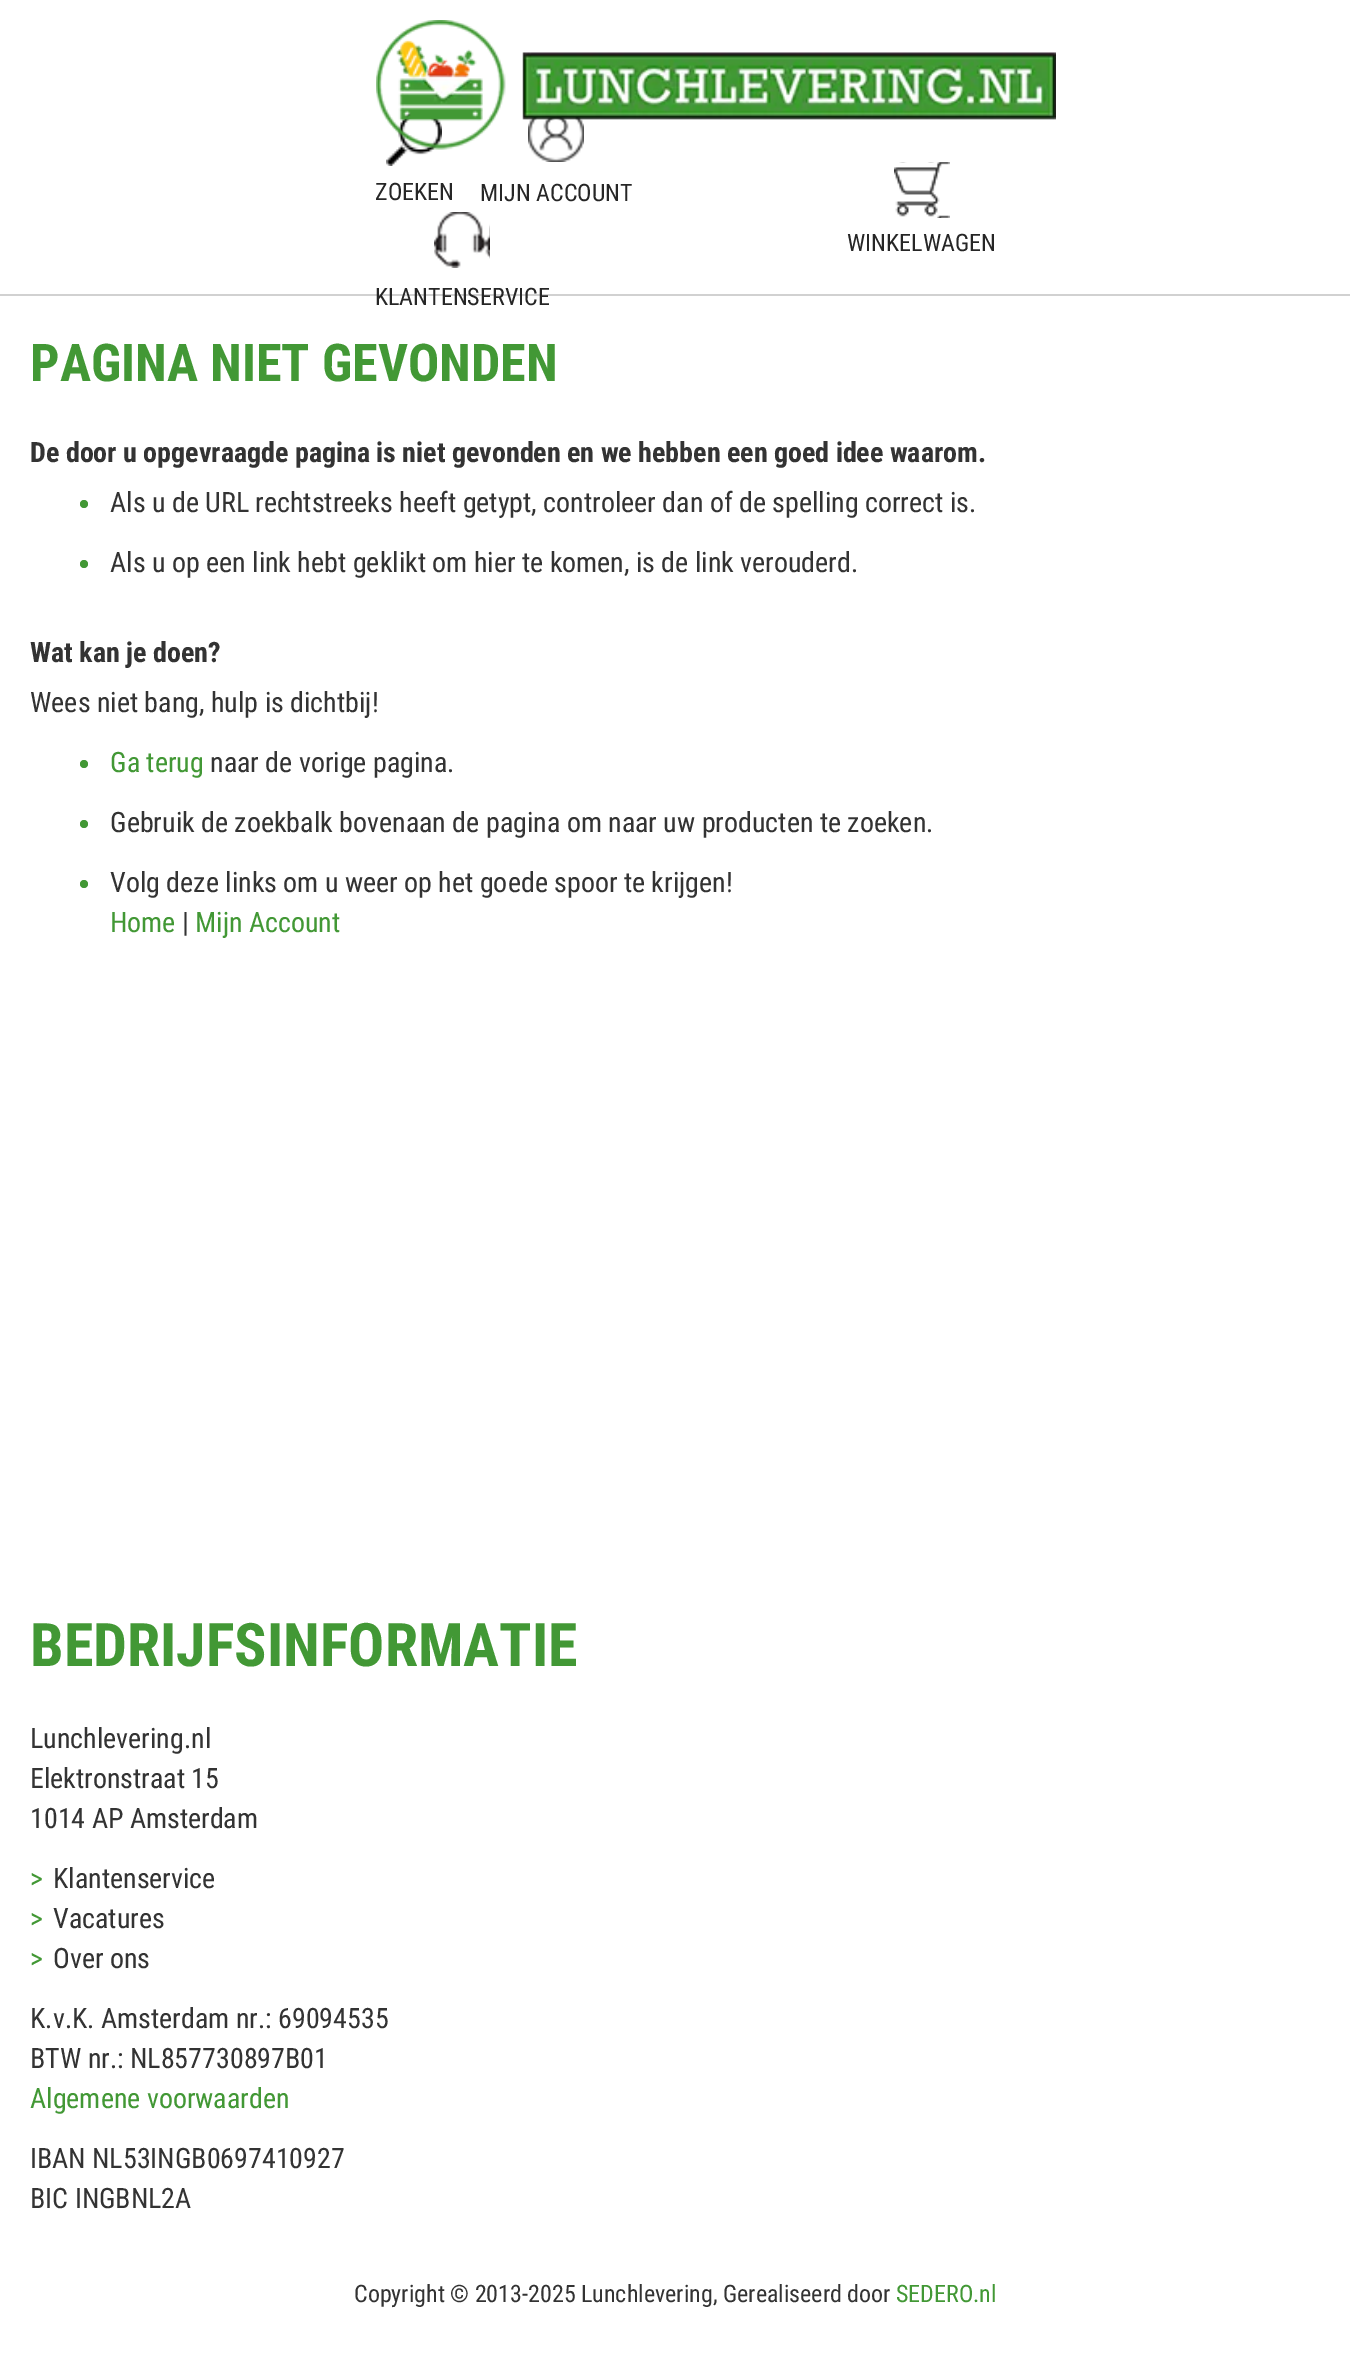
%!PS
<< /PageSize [1350 2361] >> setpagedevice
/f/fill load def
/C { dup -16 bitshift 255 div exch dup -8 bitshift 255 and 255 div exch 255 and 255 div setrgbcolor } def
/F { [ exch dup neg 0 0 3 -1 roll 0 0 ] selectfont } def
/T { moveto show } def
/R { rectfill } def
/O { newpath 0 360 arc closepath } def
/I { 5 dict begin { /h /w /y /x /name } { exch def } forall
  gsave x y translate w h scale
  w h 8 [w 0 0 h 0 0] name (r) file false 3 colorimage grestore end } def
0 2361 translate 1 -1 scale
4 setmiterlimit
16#FFFFFF C
0 0 1350 2361 R
16#D1D1D1 C
0 294 1350 2 R
(2.rgb) 386 111 56 55 I
(3.rgb) 528 117 56 45 I
(1.rgb) 376 20 680 130 I
/RobotoCondensed-Regular 24 F
16#262626 C
(ZOEKEN) 375 200 T
(MIJN ACCOUNT) 480 201 T
(4.rgb) 434 212 56 56 I
(KLANTENSERVICE) 375 305 T
(5.rgb) 894 162 56 56 I
(WINKELWAGEN) 847 251 T
/RobotoCondensed-Bold 52 F
16#429835 C
(PAGINA NIET GEVONDEN) 30 381 T
/RobotoCondensed-Bold 28 F
16#333333 C
(De door u opgevraagde pagina is niet gevonden en we hebben een goed idee waarom.) 30 462 T
16#429835 C
84 504 4 O f
/RobotoCondensed-Regular 28 F
16#333333 C
(Als u de URL rechtstreeks heeft getypt, controleer dan of de spelling correct is.) 110 512 T
16#429835 C
84 564 4 O f
16#333333 C
(Als u op een link hebt geklikt om hier te komen, is de link verouderd.) 110 572 T
/RobotoCondensed-Bold 28 F
(Wat kan je doen?) 30 662 T
/RobotoCondensed-Regular 28 F
(Wees niet bang, hulp is dichtbij!) 30 712 T
16#429835 C
84 764 4 O f
(Ga terug) 110 772 T
16#333333 C
(naar de vorige pagina.) 210 772 T
16#429835 C
84 824 4 O f
16#333333 C
(Gebruik de zoekbalk bovenaan de pagina om naar uw producten te zoeken.) 110 832 T
16#429835 C
84 884 4 O f
16#333333 C
(Volg deze links om u weer op het goede spoor te krijgen!) 110 892 T
16#429835 C
(Home) 110 932 T
16#333333 C
(|) 182 932 T
16#429835 C
(Mijn Account) 195 932 T
/RobotoCondensed-Bold 60 F
(BEDRIJFSINFORMATIE) 30 1666 T
/RobotoCondensed-Regular 28 F
16#333333 C
(Lunchlevering.nl) 30 1748 T
(Elektronstraat 15) 30 1788 T
(1014 AP Amsterdam) 30 1828 T
16#429835 C
(>) 30 1888 T
16#333333 C
(Klantenservice) 53 1888 T
16#429835 C
(>) 30 1928 T
16#333333 C
(Vacatures) 53 1928 T
16#429835 C
(>) 30 1968 T
16#333333 C
(Over ons) 53 1968 T
(K.v.K. Amsterdam nr.: 69094535) 30 2028 T
(BTW nr.: NL857730897B01) 30 2068 T
16#429835 C
(Algemene voorwaarden) 30 2108 T
16#333333 C
(IBAN NL53INGB0697410927) 30 2168 T
(BIC INGBNL2A) 30 2208 T
/RobotoCondensed-Regular 24 F
(Copyright © 2013-2025 Lunchlevering, Gerealiseerd door) 354 2302 T
16#429835 C
(SEDERO.nl) 896 2302 T
showpage
